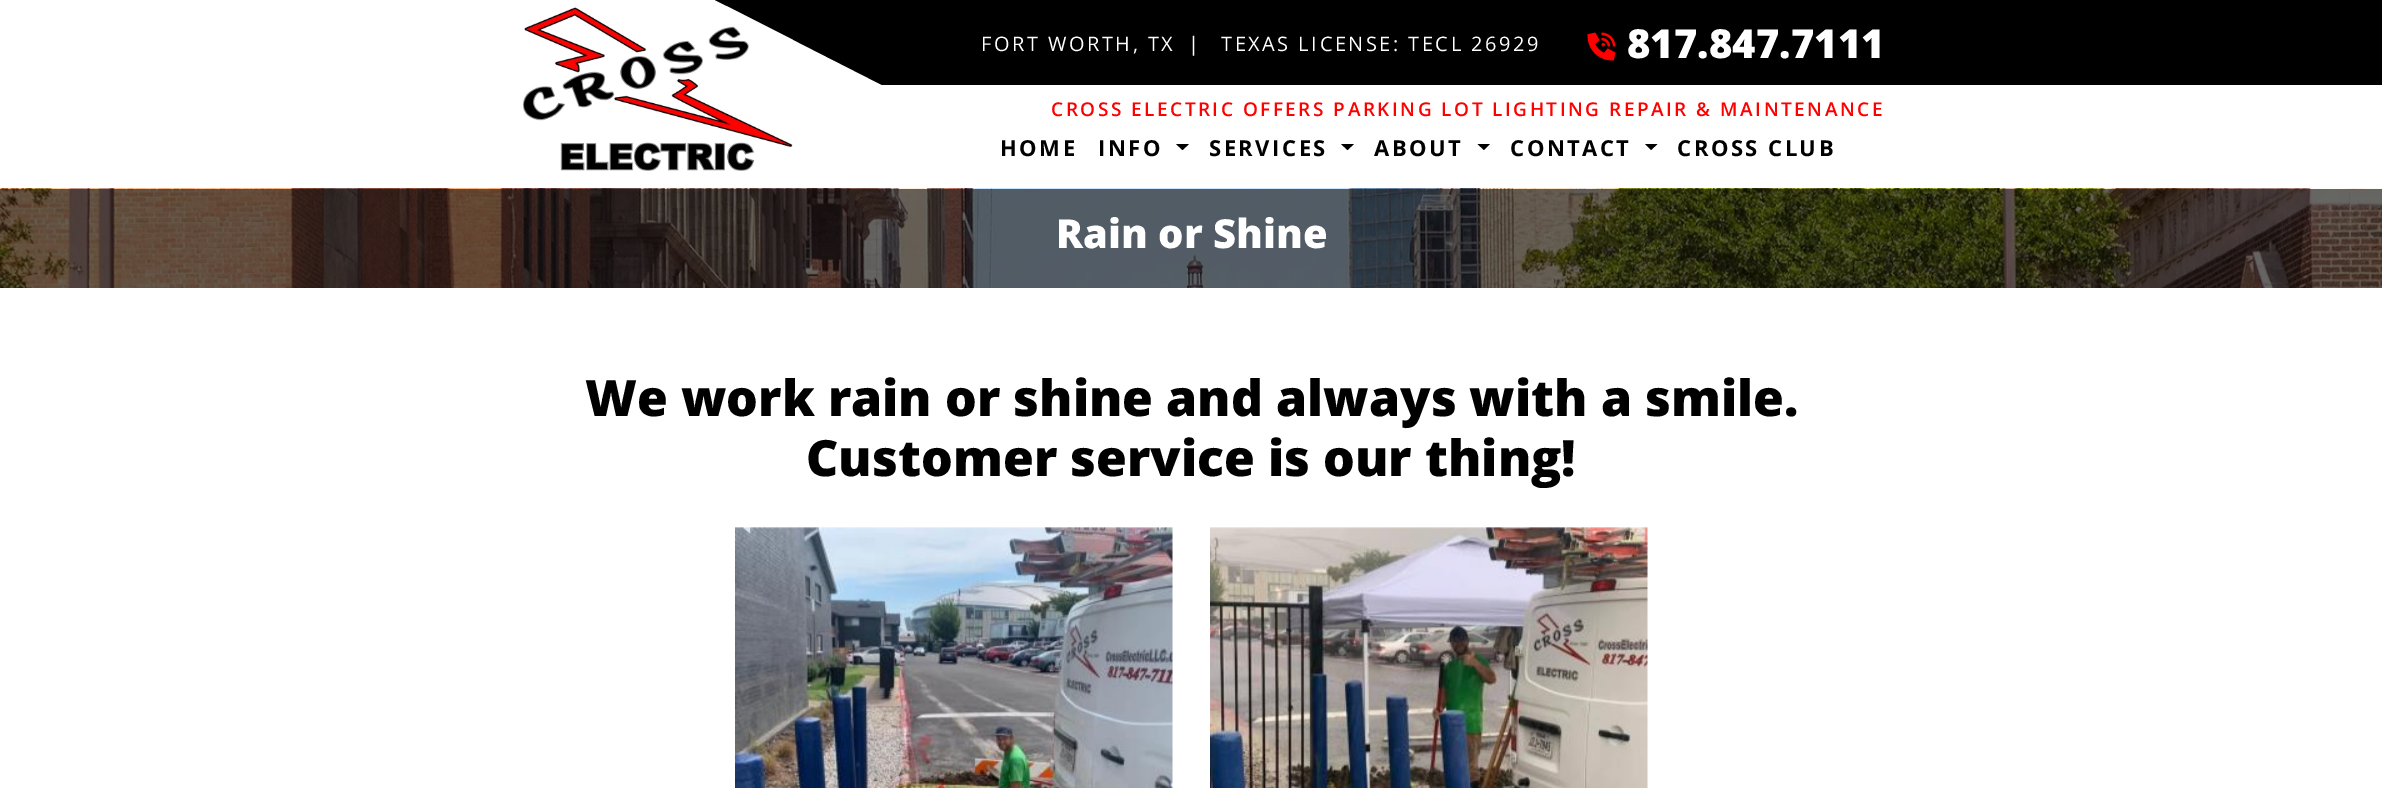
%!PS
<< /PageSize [2382 788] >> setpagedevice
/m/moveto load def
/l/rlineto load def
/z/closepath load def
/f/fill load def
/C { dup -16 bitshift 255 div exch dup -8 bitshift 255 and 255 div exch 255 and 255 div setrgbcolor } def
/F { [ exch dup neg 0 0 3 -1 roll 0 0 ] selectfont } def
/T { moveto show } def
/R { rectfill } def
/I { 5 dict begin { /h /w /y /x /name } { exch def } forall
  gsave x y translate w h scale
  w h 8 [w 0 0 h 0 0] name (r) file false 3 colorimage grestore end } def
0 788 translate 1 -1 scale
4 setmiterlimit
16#FFFFFF C
0 0 2382 788 R
16#000000 C
715 0 m 167 85 l 1500 0 l 0 -85 l z f
/OpenSans-Regular 20 F
16#FFFFFF C
981 51 m 2.5 0 (FORT WORTH, TX) ashow
1188 51 m 2.5 0 (|) ashow
1221 51 m 2.5 0 (TEXAS LICENSE: TECL 26929) ashow
(1.rgb) 1587 32 29 29 I
/OpenSans-ExtraBold 40 F
(817.847.7111) 1627 58 T
(2.rgb) 523 6 270 165 I
/OpenSans-SemiBold 19 F
16#FF0000 C
1051 116 m 2.5 0 (CROSS ELECTRIC OFFERS PARKING LOT LIGHTING REPAIR & MAINTENANCE) ashow
/OpenSans-Bold 22 F
16#000000 C
1000 156 m 2.5 0 (HOME) ashow
1098 156 m 2.5 0 (INFO) ashow
1176 144 m 13 0 l -6.5 6 l z f
1209 156 m 2.5 0 (SERVICES) ashow
1341 144 m 13 0 l -6.5 6 l z f
1374 156 m 2.5 0 (ABOUT) ashow
1477.5 144 m 12.5 0 l -6 6 l z f
1510 156 m 2.5 0 (CONTACT) ashow
1645 144 m 12.5 0 l -6.5 6 l z f
1677 156 m 2.5 0 (CROSS CLUB) ashow
(3.rgb) 0 188 2382 100 I
/OpenSans-ExtraBold 40 F
16#FFFFFF C
(Rain or Shine) 1056 248 T
/OpenSans-ExtraBold 50 F
16#000000 C
(We work rain or shine and always with a smile.) 585 416 T
(Customer service is our thing!) 806 476 T
(4.rgb) 735 527 438 261 I
(5.rgb) 1210 527 438 261 I
showpage
